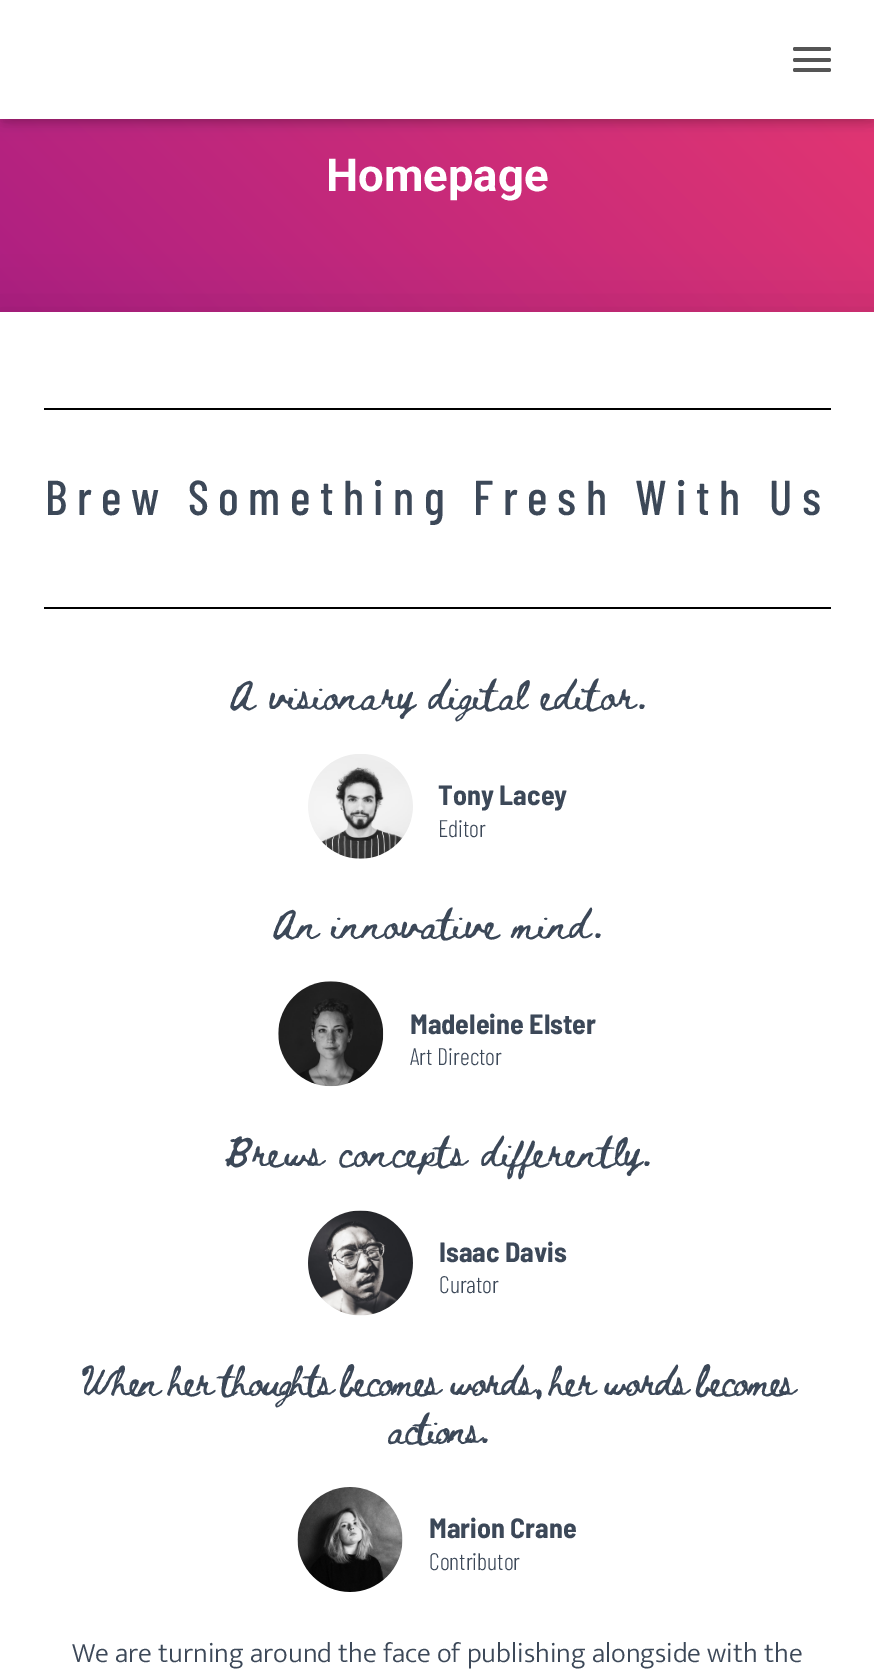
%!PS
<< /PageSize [874 1675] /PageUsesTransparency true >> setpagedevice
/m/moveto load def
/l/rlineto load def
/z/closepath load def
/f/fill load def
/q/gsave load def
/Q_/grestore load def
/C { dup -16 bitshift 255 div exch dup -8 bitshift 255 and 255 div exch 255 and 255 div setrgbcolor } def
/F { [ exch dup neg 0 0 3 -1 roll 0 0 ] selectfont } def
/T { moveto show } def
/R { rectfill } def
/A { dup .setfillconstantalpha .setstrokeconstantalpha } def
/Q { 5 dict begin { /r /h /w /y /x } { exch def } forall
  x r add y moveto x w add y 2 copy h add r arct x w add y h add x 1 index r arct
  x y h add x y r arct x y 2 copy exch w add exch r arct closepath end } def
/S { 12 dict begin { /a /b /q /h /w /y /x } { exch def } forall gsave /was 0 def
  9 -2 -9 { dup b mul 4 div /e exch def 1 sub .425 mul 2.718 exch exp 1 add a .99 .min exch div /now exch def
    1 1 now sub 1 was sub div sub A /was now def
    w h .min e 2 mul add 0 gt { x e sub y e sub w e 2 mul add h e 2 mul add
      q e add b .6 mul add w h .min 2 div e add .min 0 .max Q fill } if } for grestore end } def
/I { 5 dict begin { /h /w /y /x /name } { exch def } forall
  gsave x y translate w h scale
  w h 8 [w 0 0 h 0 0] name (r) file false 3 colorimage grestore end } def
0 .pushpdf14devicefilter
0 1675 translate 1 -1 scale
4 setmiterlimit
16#FFFFFF C
0 0 874 1675 R
q 0 119 m 874 0 l 0 193 l -874 0 l z clip newpath
<< /ShadingType 2 /ColorSpace /DeviceRGB /Coords [98 515 777 -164] /Extend [true true] /Function << /FunctionType 2 /Domain [0 1] /C0 [.659 .114 .518] /C1 [.918 .224 .435] /N 1 >> >> shfill Q_
16#000000 C
4 11 868 112 0 4.5 .1 S
0 2 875 119 0 9 .12 S
11 12 854 98 0 9 .42 S
16#FFFFFF C
0 0 874 119 R
16#555555 C
793 47 38 4 2 Q f
793 58 38 4 2 Q f
793 68 38 4 2 Q f
/Roboto-Bold 45.5 F
16#FFFFFF C
(Homepage) 326 191 T
16#000000 C
-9 313 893 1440 0 26 .12 S
16#FFFFFF C
0 312 874 1363 R
16#000000 C
44 408 787 2 R
/BarlowCondensed-Medium 49 F
16#3C4858 C
45 515 m 9.45 0 (Brew Something Fresh With Us) ashow
16#000000 C
44 607 787 2 R
/BethEllen-Regular 29.75 F
16#3C4858 C
(A visionary digital editor.) 229 709 T
(1.rgb) 308 754 105 105 I
/BarlowSemiCondensed-Bold 28 F
(Tony Lacey) 438 805 T
/BarlowCondensed-Light 24 F
(Editor) 438 837 T
/BethEllen-Regular 29.75 F
(An innovative mind.) 272 938 T
(2.rgb) 278 981 106 106 I
/BarlowSemiCondensed-Bold 28 F
(Madeleine Elster) 410 1034 T
/BarlowCondensed-Light 24 F
(Art Director) 410 1065 T
/BethEllen-Regular 29.75 F
(Brews concepts differently.) 224 1166 T
(3.rgb) 308 1210 105 106 I
/BarlowSemiCondensed-Bold 28 F
(Isaac Davis) 439 1262 T
/BarlowCondensed-Light 24 F
(Curator) 439 1293 T
/BethEllen-Regular 29.75 F
81 1395 m -2.98 0 (When her thoughts becomes words, her words becomes) ashow
388 1443 m -2.98 0 (actions.) ashow
(4.rgb) 297 1487 106 105 I
/BarlowSemiCondensed-Bold 28 F
(Marion Crane) 429 1538 T
/BarlowCondensed-Light 24 F
(Contributor) 429 1570 T
/Mukta-Light 28 F
(We are turning around the face of publishing alongside with the) 72 1662 T
.poppdf14devicefilter showpage
